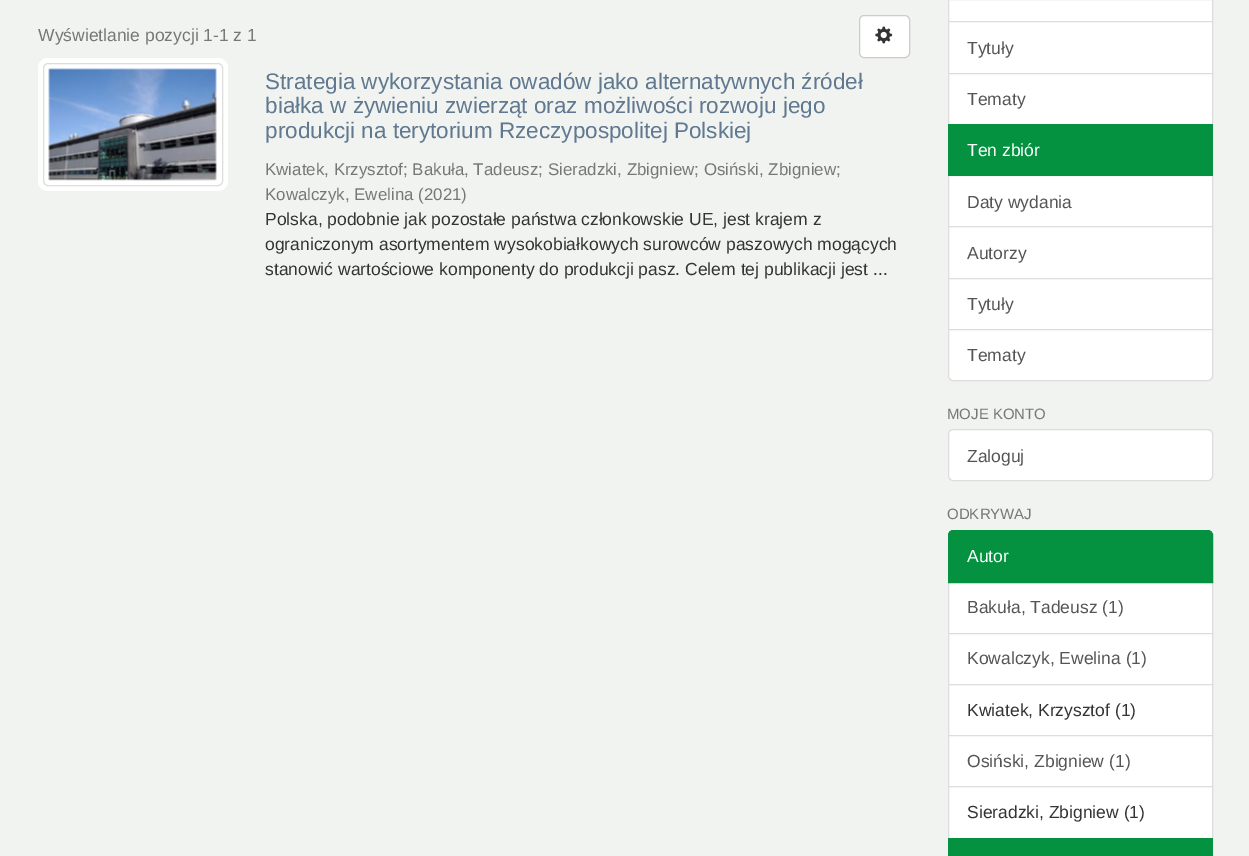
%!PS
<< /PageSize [1249 856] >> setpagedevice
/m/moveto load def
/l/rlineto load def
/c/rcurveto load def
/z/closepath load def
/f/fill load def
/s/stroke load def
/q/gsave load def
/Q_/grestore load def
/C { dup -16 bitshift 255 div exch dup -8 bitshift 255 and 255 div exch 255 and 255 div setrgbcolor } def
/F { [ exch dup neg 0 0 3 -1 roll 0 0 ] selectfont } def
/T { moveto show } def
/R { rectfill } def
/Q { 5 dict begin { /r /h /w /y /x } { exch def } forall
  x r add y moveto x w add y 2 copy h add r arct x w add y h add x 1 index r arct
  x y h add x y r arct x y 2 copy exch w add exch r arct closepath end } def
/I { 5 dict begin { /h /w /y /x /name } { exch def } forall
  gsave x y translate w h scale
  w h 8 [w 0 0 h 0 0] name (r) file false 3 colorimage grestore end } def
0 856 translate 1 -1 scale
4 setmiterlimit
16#F1F3F0 C
0 0 1249 856 R
/LiberationSans-Regular 17.5 F
16#777777 C
(Wyświetlanie pozycji 1-1 z 1) 38 41 T
16#FFFFFF C
859.5 15.5 50 42 4.5 Q q f Q_
16#CCCCCC C
s
(1.rgb) 875 26 18 18 I
16#FFFFFF C
38 58 190 133 10 Q f
16#DDDDDD C
43.5 63.5 179 122 4.5 Q s
(2.rgb) 48 68 169 113 I
/LiberationSans-Regular 22.5 F
16#607890 C
(Strategia wykorzystania owadów jako alternatywnych źródeł) 265 89 T
(białka w żywieniu zwierząt oraz możliwości rozwoju jego) 265 113 T
(produkcji na terytorium Rzeczypospolitej Polskiej) 265 138 T
/LiberationSans-Regular 16.9 F
16#777777 C
(Kwiatek, Krzysztof; Bakuła, Tadeusz; Sieradzki, Zbigniew; Osiński, Zbigniew;) 265 175 T
(Kowalczyk, Ewelina \(2021\)) 265 200 T
/LiberationSans-Regular 17.5 F
16#333333 C
(Polska, podobnie jak pozostałe państwa członkowskie UE, jest krajem z) 265 225 T
(ograniczonym asortymentem wysokobiałkowych surowców paszowych mogących) 265 250 T
(stanowić wartościowe komponenty do produkcji pasz. Celem tej publikacji jest ...) 265 275 T
16#FFFFFF C
949 0 263 21 R
16#DDDDDD C
948.5 -.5 264 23 rectstroke
16#FFFFFF C
948.5 21.5 m 264 0 l 0 52 l -264 0 l z q f Q_
16#DDDDDD C
s
16#555555 C
(Tytuły) 967 54 T
16#FFFFFF C
948.5 73.5 m 264 0 l 0 51 l -264 0 l z q f Q_
16#DDDDDD C
s
16#555555 C
(Tematy) 967 105 T
16#FFFFFF C
949 176 263 50 R
16#DDDDDD C
948.5 175.5 264 52 rectstroke
16#049241 C
948 124 265 52 R
16#FFFFFF C
(Ten zbiór) 967 156 T
16#555555 C
(Daty wydania) 967 208 T
16#FFFFFF C
948.5 226.5 m 264 0 l 0 52 l -264 0 l z q f Q_
16#DDDDDD C
s
16#555555 C
(Autorzy) 967 259 T
16#FFFFFF C
948.5 278.5 m 264 0 l 0 51 l -264 0 l z q f Q_
16#DDDDDD C
s
16#555555 C
(Tytuły) 967 310 T
16#FFFFFF C
948.5 329.5 m 264 0 l 0 46.5 l 0 2.5 -2 4.5 -4.5 4.5 c -255 0 l -2.5 0 -4.5 -2 -4.5 -4.5 c z q f Q_
16#DDDDDD C
s
16#555555 C
(Tematy) 967 361 T
/LiberationSans-Regular 15 F
16#777777 C
(MOJE KONTO) 947 419 T
16#FFFFFF C
948.5 429.5 264 51 4.5 Q q f Q_
16#DDDDDD C
s
/LiberationSans-Regular 17.5 F
16#555555 C
(Zaloguj) 967 462 T
/LiberationSans-Regular 15 F
16#777777 C
(ODKRYWAJ) 947 519 T
16#FFFFFF C
949 583 263 50 R
16#DDDDDD C
948.5 581.5 264 52 rectstroke
16#049241 C
953 530.5 m 255 0 l 2.5 0 4.5 2 4.5 4.5 c 0 47.5 l -264 0 l 0 -47.5 l 0 -2.5 2 -4.5 4.5 -4.5 c z q f Q_
s
/LiberationSans-Regular 17.5 F
16#FFFFFF C
(Autor) 967 562 T
16#555555 C
(Bakuła, Tadeusz \(1\)) 967 613 T
16#FFFFFF C
948.5 633.5 m 264 0 l 0 51 l -264 0 l z q f Q_
16#DDDDDD C
s
16#555555 C
(Kowalczyk, Ewelina \(1\)) 967 664 T
16#FFFFFF C
948.5 684.5 m 264 0 l 0 51 l -264 0 l z q f Q_
16#DDDDDD C
s
16#333333 C
(Kwiatek, Krzysztof \(1\)) 967 716 T
16#FFFFFF C
949 736 263 50 R
16#DDDDDD C
948.5 735.5 264 52 rectstroke
16#555555 C
(Osiński, Zbigniew \(1\)) 967 767 T
16#FFFFFF C
948.5 786.5 m 264 0 l 0 52 l -264 0 l z q f Q_
16#DDDDDD C
s
16#333333 C
(Sieradzki, Zbigniew \(1\)) 967 818 T
16#049241 C
948 838 265 18 R
showpage
